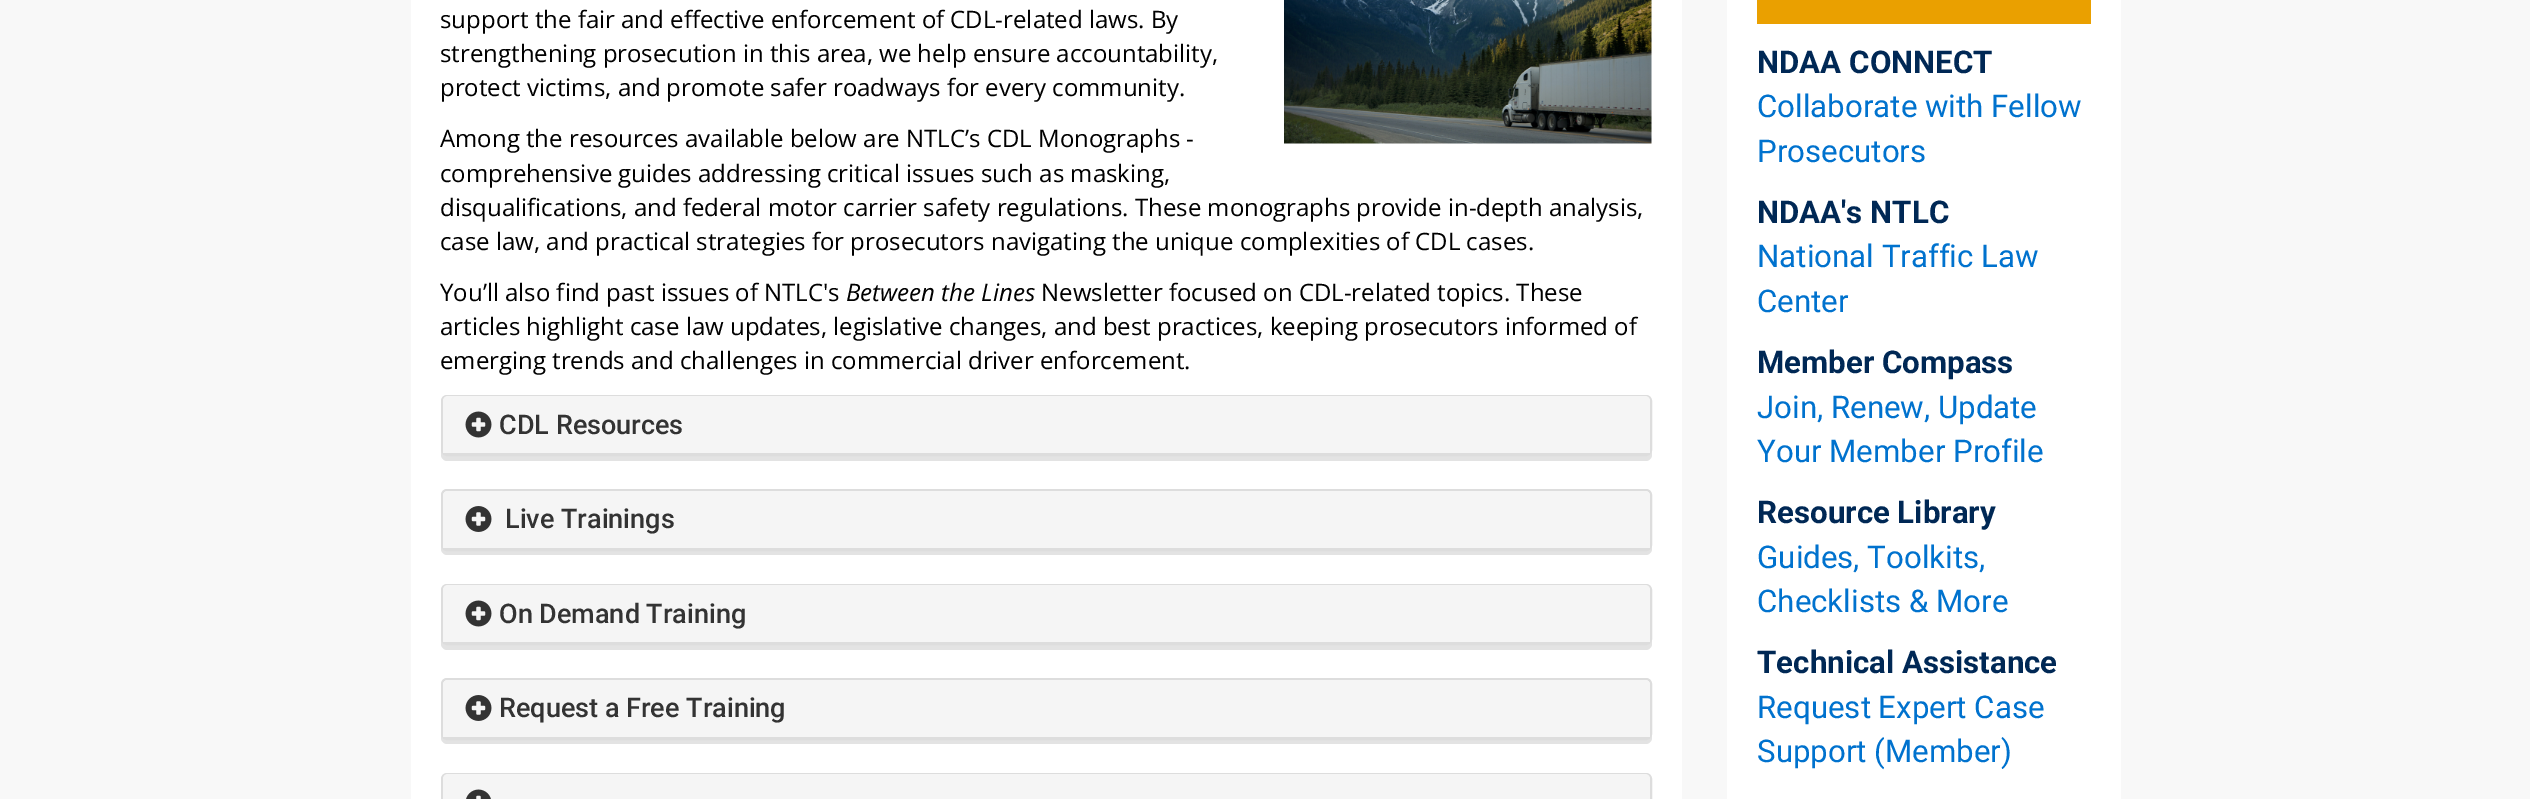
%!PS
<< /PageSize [2530 799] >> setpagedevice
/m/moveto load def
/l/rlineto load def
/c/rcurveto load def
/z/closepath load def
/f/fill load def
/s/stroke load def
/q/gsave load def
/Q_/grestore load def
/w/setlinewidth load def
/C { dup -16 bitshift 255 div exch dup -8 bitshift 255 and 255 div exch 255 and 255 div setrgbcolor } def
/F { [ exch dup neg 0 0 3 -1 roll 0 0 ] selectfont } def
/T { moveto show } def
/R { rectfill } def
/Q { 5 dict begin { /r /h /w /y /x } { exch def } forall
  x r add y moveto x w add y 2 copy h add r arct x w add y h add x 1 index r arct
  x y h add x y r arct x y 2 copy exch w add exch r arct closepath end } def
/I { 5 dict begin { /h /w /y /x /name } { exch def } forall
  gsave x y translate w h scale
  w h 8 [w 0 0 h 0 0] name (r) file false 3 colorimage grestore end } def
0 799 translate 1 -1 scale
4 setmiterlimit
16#F8F8F8 C
0 0 2530 799 R
16#FFFFFF C
411 0 1271 799 R
/OpenSans-Regular 24 F
16#000000 C
(support the fair and effective enforcement of CDL-related laws. By) 440 28 T
(1.rgb) 1284 0 368 144 I
(strengthening prosecution in this area, we help ensure accountability,) 440 62 T
(protect victims, and promote safer roadways for every community.) 440 96 T
(Among the resources available below are NTLC’s CDL Monographs -) 440 147 T
(comprehensive guides addressing critical issues such as masking,) 440 182 T
(disqualifications, and federal motor carrier safety regulations. These monographs provide in-depth analysis,) 440 216 T
(case law, and practical strategies for prosecutors navigating the unique complexities of CDL cases.) 440 250 T
(You’ll also find past issues of NTLC's) 440 301 T
/OpenSans-Italic 24 F
(Between the Lines) 846 301 T
/OpenSans-Regular 24 F
(Newsletter focused on CDL-related topics. These) 1041 301 T
(articles highlight case law updates, legislative changes, and best practices, keeping prosecutors informed of) 440 335 T
(emerging trends and challenges in commercial driver enforcement.) 440 369 T
16#E3E3E3 C
441 450 m 0 5 l 0 3 3 6 6 6 c 1199 0 l 3 0 6 -3 6 -6 c 0 -50 l 0 -2 l 0 47 l 0 3 -3 6 -6 6 c -1199 0 l -3 0 -6 -3 -6 -6 c z f
16#DDDDDD C
2 w
442 396 1209 59 5 Q s
16#F5F5F5 C
448 396 m 1197 0 l 3 0 5 2 5 5 c 0 54 l -1207 0 l 0 -54 l 0 -3 2 -5 5 -5 c z f
16#DDDDDD C
443 453 1207 2 R
(2.rgb) 465 411 27 27 I
/Roboto-Medium 27 F
16#333333 C
(CDL Resources) 499 434 T
16#E3E3E3 C
441 544 m 0 5 l 0 3 3 6 6 6 c 1199 0 l 3 0 6 -3 6 -6 c 0 -49 l 0 -2 l 0 46 l 0 4 -3 6 -6 6 c -1199 0 l -3 0 -6 -2 -6 -6 c z f
16#FFFFFF C
442 490 1209 60 5 Q q f Q_
16#DDDDDD C
s
16#F5F5F5 C
448 491 m 1197 0 l 3 0 5 2 5 5 c 0 53 l -1207 0 l 0 -53 l 0 -3 2 -5 5 -5 c z f
16#DDDDDD C
443 548 1207 2 R
(3.rgb) 465 506 27 26 I
16#333333 C
(Live Trainings) 505 528 T
16#E3E3E3 C
441 639 m 0 5 l 0 3 3 6 6 6 c 1199 0 l 3 0 6 -3 6 -6 c 0 -50 l 0 -2 l 0 47 l 0 3 -3 6 -6 6 c -1199 0 l -3 0 -6 -3 -6 -6 c z f
16#DDDDDD C
442 585 1209 59 5 Q s
16#F5F5F5 C
448 585 m 1197 0 l 3 0 5 2 5 5 c 0 54 l -1207 0 l 0 -54 l 0 -3 2 -5 5 -5 c z f
16#DDDDDD C
443 642 1207 2 R
(2.rgb) 465 600 27 27 I
16#333333 C
(On Demand Training) 499 623 T
16#E3E3E3 C
441 734 m 0 4 l 0 3 3 6 6 6 c 1199 0 l 3 0 6 -3 6 -6 c 0 -49 l 0 -2 l 0 47 l 0 3 -3 6 -6 6 c -1199 0 l -3 0 -6 -3 -6 -6 c z f
16#FFFFFF C
442 679 1209 60 5 Q q f Q_
16#DDDDDD C
s
16#F5F5F5 C
448 680 m 1197 0 l 3 0 5 2 5 5 c 0 53 l -1207 0 l 0 -53 l 0 -3 2 -5 5 -5 c z f
16#DDDDDD C
443 737 1207 2 R
(3.rgb) 465 695 27 26 I
16#333333 C
(Request a Free Training) 499 717 T
16#DDDDDD C
442 774 1209 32 5 Q s
16#F5F5F5 C
448 774 m 1197 0 l 3 0 5 2 5 5 c 0 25 l -1207 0 l 0 -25 l 0 -3 2 -5 5 -5 c z f
(4.rgb) 466 789 25 10 I
16#FFFFFF C
1727 0 394 799 R
16#EAA000 C
1757 0 334 24 R
/Roboto-Bold 31.25 F
16#002855 C
(NDAA CONNECT) 1757 73 T
/Roboto-Regular 31.25 F
16#0072CE C
(Collaborate with Fellow) 1757 117 T
(Prosecutors) 1757 162 T
/Roboto-Bold 31.25 F
16#002855 C
(NDAA's NTLC) 1757 223 T
/Roboto-Regular 31.25 F
16#0072CE C
(National Traffic Law) 1757 267 T
(Center) 1757 312 T
/Roboto-Bold 31.25 F
16#002855 C
(Member Compass) 1757 373 T
/Roboto-Regular 31.25 F
16#0072CE C
(Join, Renew, Update) 1757 418 T
(Your Member Profile) 1757 462 T
/Roboto-Bold 31.25 F
16#002855 C
(Resource Library) 1757 523 T
/Roboto-Regular 31.25 F
16#0072CE C
(Guides, Toolkits,) 1757 568 T
(Checklists & More) 1757 612 T
/Roboto-Bold 31.25 F
16#002855 C
(Technical Assistance) 1757 673 T
/Roboto-Regular 31.25 F
16#0072CE C
(Request Expert Case) 1757 718 T
(Support \(Member\)) 1757 762 T
showpage
